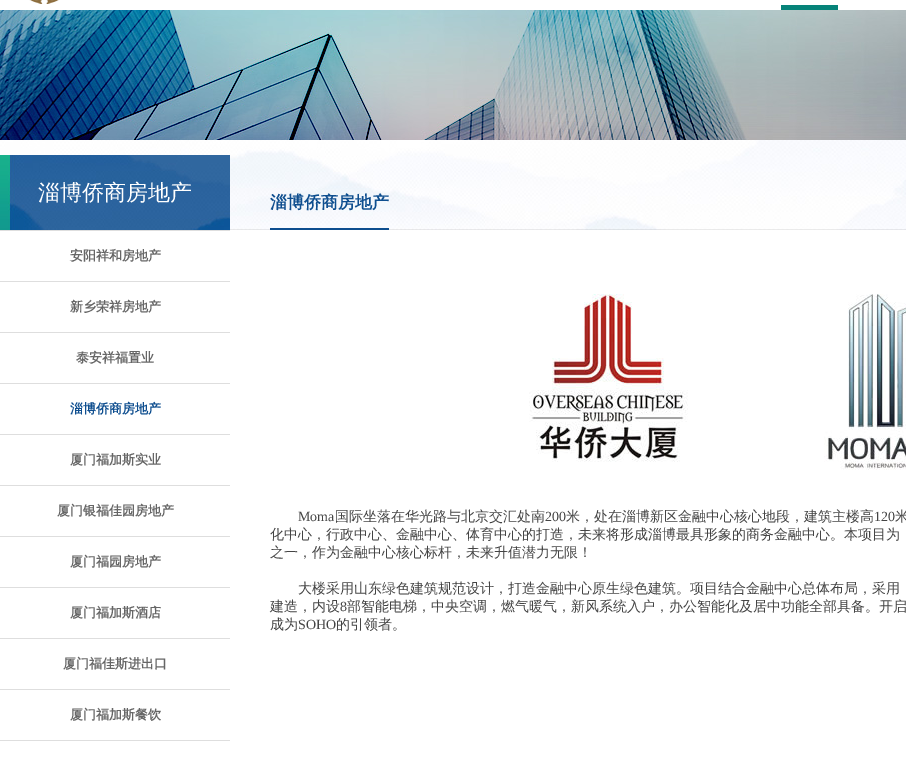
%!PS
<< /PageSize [906 764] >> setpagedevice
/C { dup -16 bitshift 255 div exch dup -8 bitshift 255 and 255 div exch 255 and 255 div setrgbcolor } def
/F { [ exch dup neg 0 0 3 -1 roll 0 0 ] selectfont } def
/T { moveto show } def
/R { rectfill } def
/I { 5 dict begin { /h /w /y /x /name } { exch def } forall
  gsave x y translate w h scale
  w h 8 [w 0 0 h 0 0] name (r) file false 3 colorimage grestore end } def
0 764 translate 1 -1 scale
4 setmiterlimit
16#FFFFFF C
0 0 906 764 R
(1.rgb) 29 0 30 4 I
16#068379 C
781 5 57 5 R
(2.rgb) 0 10 906 130 I
(3.rgb) 0 140 906 90 I
(4.rgb) 0 155 230 75 I
/WenQuanYiZenHei-Medium 22 F
16#FFFFFF C
(淄博侨商房地产) 38 200 T
16#DEDEDE C
0 230 230 1 R
/WenQuanYiZenHei-Bold 13 F
16#666666 C
(安阳祥和房地产) 70 260 T
16#DEDEDE C
0 281 230 1 R
16#666666 C
(新乡荣祥房地产) 70 311 T
16#DEDEDE C
0 332 230 1 R
16#666666 C
(泰安祥福置业) 76 362 T
16#DEDEDE C
0 383 230 1 R
16#0E4E8F C
(淄博侨商房地产) 70 413 T
16#DEDEDE C
0 434 230 1 R
16#666666 C
(厦门福加斯实业) 70 464 T
16#DEDEDE C
0 485 230 1 R
16#666666 C
(厦门银福佳园房地产) 57 515 T
16#DEDEDE C
0 536 230 1 R
16#666666 C
(厦门福园房地产) 70 566 T
16#DEDEDE C
0 587 230 1 R
16#666666 C
(厦门福加斯酒店) 70 617 T
16#DEDEDE C
0 638 230 1 R
16#666666 C
(厦门福佳斯进出口) 63 668 T
16#DEDEDE C
0 689 230 1 R
16#666666 C
(厦门福加斯餐饮) 70 719 T
16#DEDEDE C
0 740 230 1 R
16#0E4E8F C
270 228 119 2 R
/WenQuanYiZenHei-Bold 17 F
(淄博侨商房地产) 270 208 T
(5.rgb) 529 294 377 176 I
/LiberationSerif-Regular 14 F
16#444444 C
(Moma) 298 521 T
/WenQuanYiZenHei-Medium 14 F
(国际坐落在华光路与北京交汇处南) 335 521 T
/LiberationSerif-Regular 14 F
(200) 545 521 T
/WenQuanYiZenHei-Medium 14 F
(米，处在淄博新区金融中心核心地段，建筑主楼高) 566 521 T
/LiberationSerif-Regular 14 F
(120) 874 521 T
/WenQuanYiZenHei-Medium 14 F
(米) 895 521 T
(化中心，行政中心、金融中心、体育中心的打造，未来将形成淄博最具形象的商务金融中心。本项目为) 270 539 T
(之一，作为金融中心核心标杆，未来升值潜力无限！) 270 557 T
(大楼采用山东绿色建筑规范设计，打造金融中心原生绿色建筑。项目结合金融中心总体布局，采用) 298 593 T
(建造，内设) 270 611 T
/LiberationSerif-Regular 14 F
(8) 340 611 T
/WenQuanYiZenHei-Medium 14 F
(部智能电梯，中央空调，燃气暖气，新风系统入户，办公智能化及居中功能全部具备。开启) 347 611 T
(成为) 270 629 T
/LiberationSerif-Regular 14 F
(SOHO) 298 629 T
/WenQuanYiZenHei-Medium 14 F
(的引领者。) 336 629 T
showpage
